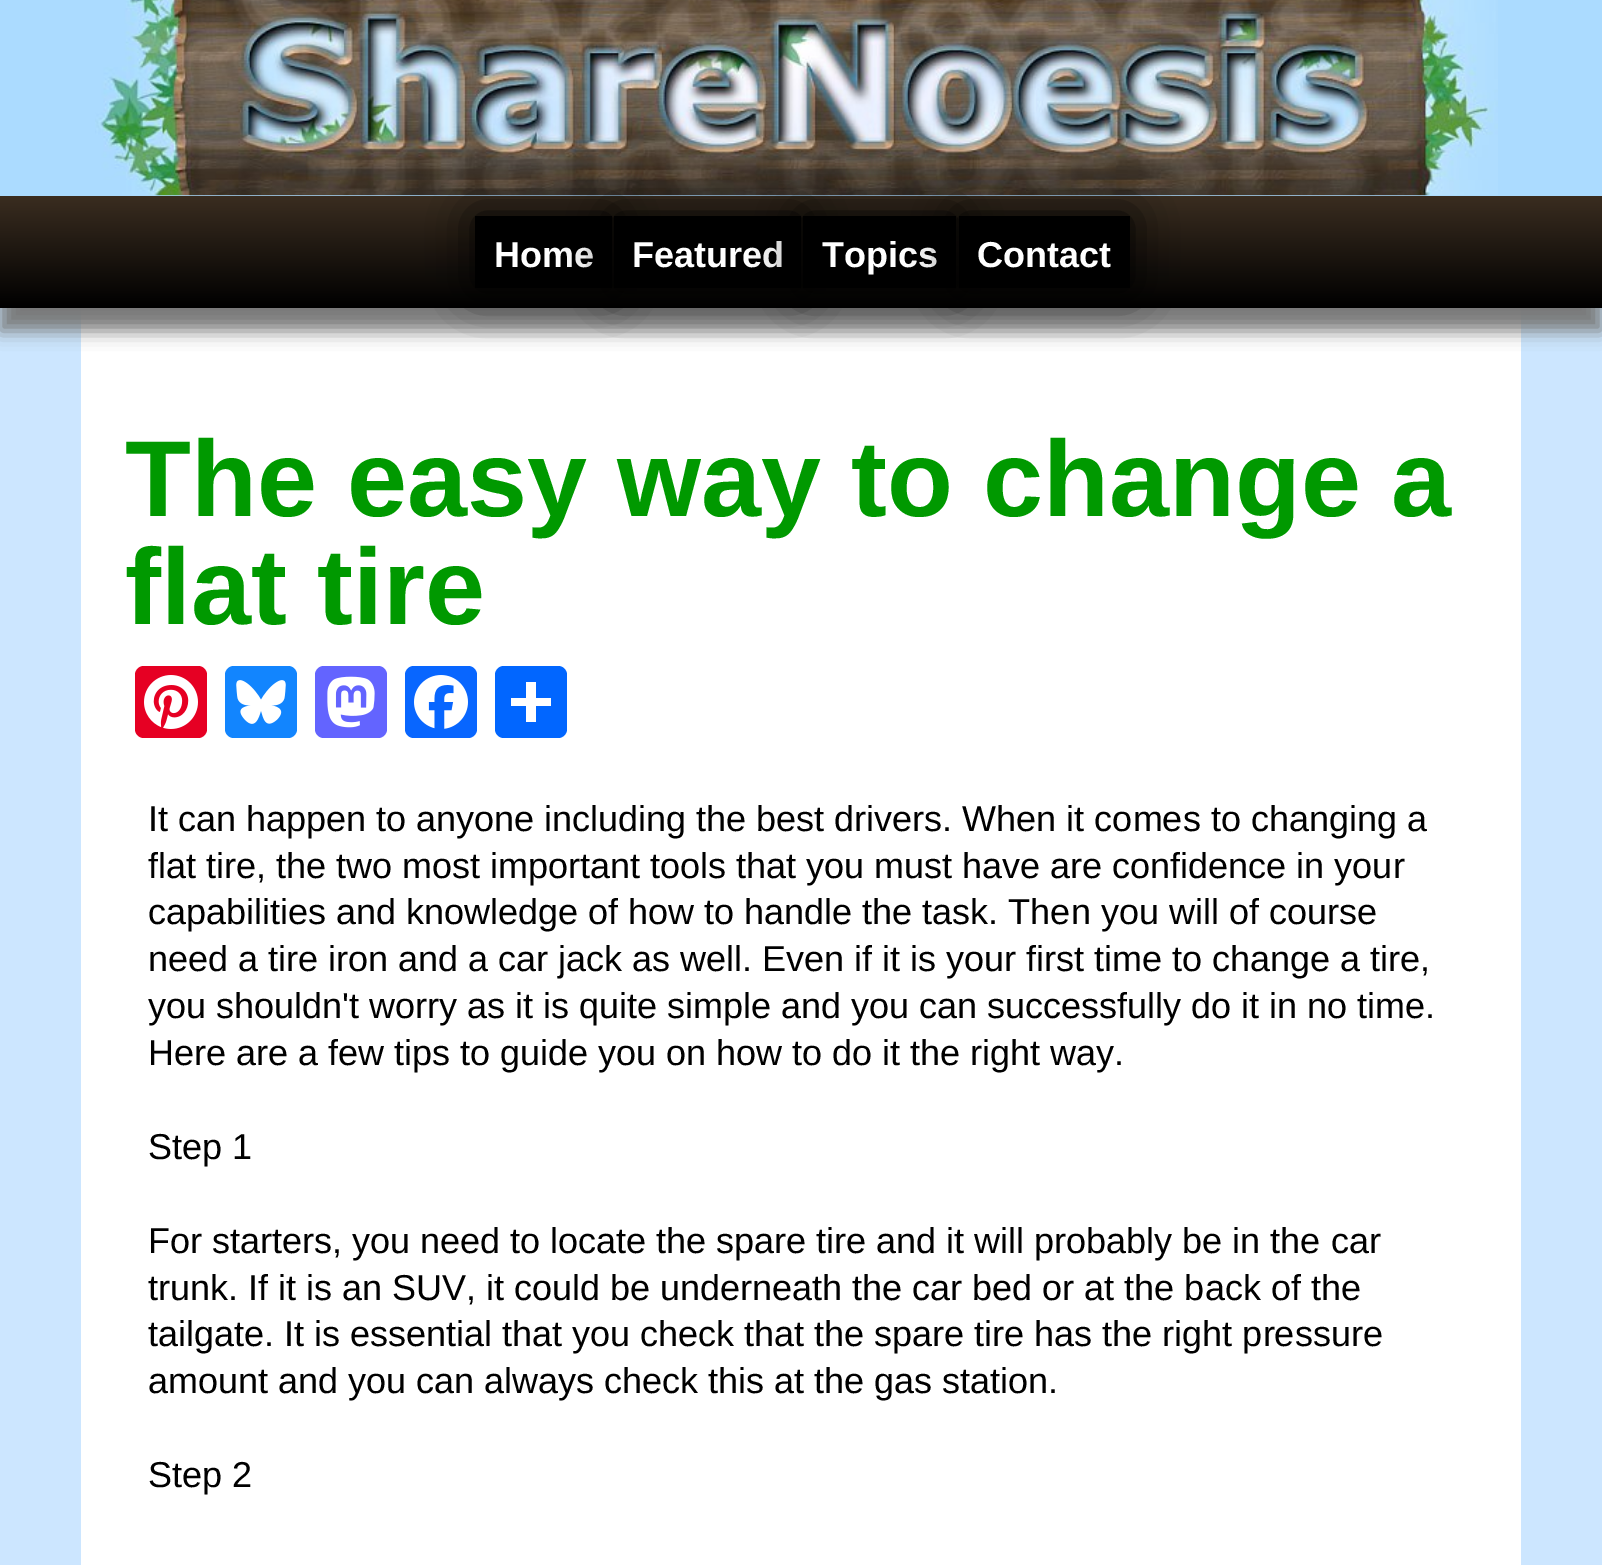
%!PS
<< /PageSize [1602 1565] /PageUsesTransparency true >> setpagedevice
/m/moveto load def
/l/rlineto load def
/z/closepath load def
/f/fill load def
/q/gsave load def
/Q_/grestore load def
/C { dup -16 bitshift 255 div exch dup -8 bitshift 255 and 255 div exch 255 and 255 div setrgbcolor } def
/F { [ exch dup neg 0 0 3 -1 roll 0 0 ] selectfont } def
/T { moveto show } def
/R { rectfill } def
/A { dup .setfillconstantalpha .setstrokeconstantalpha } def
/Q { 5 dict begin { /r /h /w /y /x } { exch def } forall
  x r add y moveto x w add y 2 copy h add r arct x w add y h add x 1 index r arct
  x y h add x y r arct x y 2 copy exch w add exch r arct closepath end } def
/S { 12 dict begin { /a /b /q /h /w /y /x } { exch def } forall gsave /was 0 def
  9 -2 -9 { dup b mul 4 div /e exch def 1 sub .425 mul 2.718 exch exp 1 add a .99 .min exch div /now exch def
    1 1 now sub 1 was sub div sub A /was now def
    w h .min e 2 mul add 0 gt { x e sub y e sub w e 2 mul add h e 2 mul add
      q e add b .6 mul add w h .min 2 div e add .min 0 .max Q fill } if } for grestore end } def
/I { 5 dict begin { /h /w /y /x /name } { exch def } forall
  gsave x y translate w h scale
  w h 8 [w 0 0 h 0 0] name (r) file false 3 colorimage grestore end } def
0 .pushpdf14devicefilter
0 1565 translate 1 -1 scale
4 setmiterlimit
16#ABDBFF C
0 0 1602 1565 R
(1.rgb) 95 0 1403 196 I
16#CCE6FF C
0 308 1602 1257 R
16#FFFFFF C
81 308 1440 1257 R
16#777777 C
0 218 1602 113 0 9 1 S
q 0 196 m 1602 0 l 0 112 l -1602 0 l z clip newpath
<< /ShadingType 2 /ColorSpace /DeviceRGB /Coords [801 196 801 308] /Extend [true true] /Function << /FunctionType 2 /Domain [0 1] /C0 [.227 .176 .125] /C1 [0 0 0] /N 1 >> >> shfill Q_
16#000000 C
475 216 137 72 0 22.5 1 S
475 216 137 72 R
/LiberationSans-Bold 36 F
16#FFFFFF C
(Home) 494 267 T
16#000000 C
614 216 187 72 0 22.5 1 S
614 216 187 72 R
16#FFFFFF C
(Featured) 632 267 T
16#000000 C
803 216 153 72 0 22.5 1 S
803 216 153 72 R
16#FFFFFF C
(Topics) 822 267 T
16#000000 C
959 216 171 72 0 22.5 1 S
959 216 171 72 R
16#FFFFFF C
(Contact) 977 267 T
/LiberationSans-Bold 108 F
16#009900 C
(The easy way to change a) 125 516 T
(flat tire) 125 624 T
16#E60023 C
135 666 72 72 9 Q f
(2.rgb) 144 675 54 54 I
16#1285FE C
225 666 72 72 9 Q f
(3.rgb) 236 680 50 44 I
16#6364FF C
315 666 72 72 9 Q f
(4.rgb) 327 676 48 52 I
16#0866FF C
405 666 72 72 9 Q f
(5.rgb) 414 675 54 54 I
16#0166FF C
495 666 72 72 9 Q f
16#FFFFFF C
526 682 10 40 R
511 698 40 8 R
/LiberationSans-Regular 36 F
16#000000 C
(It can happen to anyone including the best drivers. When it comes to changing a) 148 831 T
(flat tire, the two most important tools that you must have are confidence in your) 148 878 T
(capabilities and knowledge of how to handle the task. Then you will of course) 148 924 T
(need a tire iron and a car jack as well. Even if it is your first time to change a tire,) 148 971 T
(you shouldn't worry as it is quite simple and you can successfully do it in no time.) 148 1018 T
(Here are a few tips to guide you on how to do it the right way.) 148 1065 T
(Step 1) 148 1159 T
(For starters, you need to locate the spare tire and it will probably be in the car) 148 1253 T
(trunk. If it is an SUV, it could be underneath the car bed or at the back of the) 148 1300 T
(tailgate. It is essential that you check that the spare tire has the right pressure) 148 1346 T
(amount and you can always check this at the gas station.) 148 1393 T
(Step 2) 148 1487 T
.poppdf14devicefilter showpage
